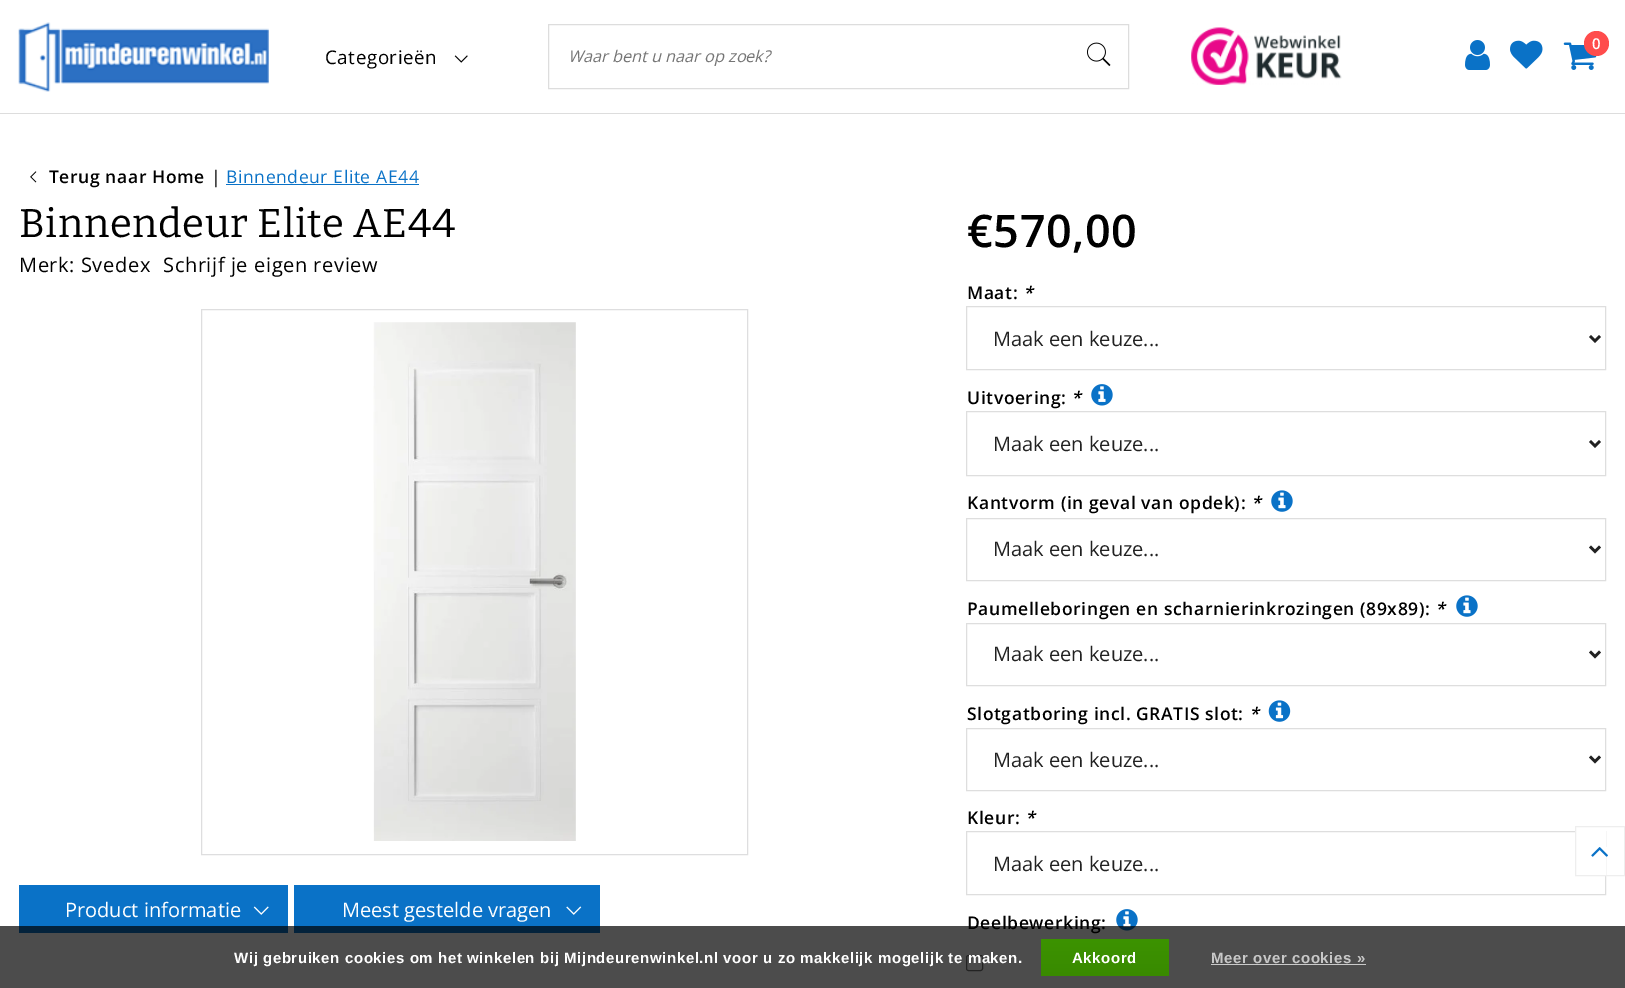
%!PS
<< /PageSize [1625 988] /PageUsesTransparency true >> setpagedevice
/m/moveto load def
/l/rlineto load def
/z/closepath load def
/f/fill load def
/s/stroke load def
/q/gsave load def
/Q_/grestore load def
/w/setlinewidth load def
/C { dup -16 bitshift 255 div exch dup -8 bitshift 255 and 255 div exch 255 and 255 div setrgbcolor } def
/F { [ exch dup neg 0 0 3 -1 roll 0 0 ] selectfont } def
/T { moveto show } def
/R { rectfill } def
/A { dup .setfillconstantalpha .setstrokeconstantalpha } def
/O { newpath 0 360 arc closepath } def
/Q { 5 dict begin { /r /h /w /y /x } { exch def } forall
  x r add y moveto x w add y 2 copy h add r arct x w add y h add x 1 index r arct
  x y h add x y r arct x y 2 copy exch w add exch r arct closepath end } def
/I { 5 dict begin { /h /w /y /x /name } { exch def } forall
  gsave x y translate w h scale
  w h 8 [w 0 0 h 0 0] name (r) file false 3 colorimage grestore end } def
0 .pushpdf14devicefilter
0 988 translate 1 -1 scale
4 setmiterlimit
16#FFFFFF C
0 0 1625 988 R
16#DDDDDD C
0 113 1625 1 R
(1.rgb) 1465 40 25 30 I
(2.rgb) 1510 40 33 29 I
(3.rgb) 1563 42 34 28 I
16#FF4C4C C
1596.5 43.5 12.5 O f
/OpenSans-SemiBold 15 F
16#FFFFFF C
1592 49 m .6 0 (0) ashow
(4.rgb) 18 22 251 70 I
/OpenSans-Regular 18.75 F
16#000000 C
325 64 m .6 0 (Categorieën) ashow
(5.rgb) 454 55 14 8 I
16#DDDDDD C
548.5 24.5 580 64 rectstroke
/OpenSans-Italic 16.25 F
16#757575 C
(Waar bent u naar op zoek?) 568 62 T
(6.rgb) 1087 42 24 25 I
(7.rgb) 1191 27 151 58 I
(8.rgb) 30 171 7 12 I
/OpenSans-SemiBold 17.5 F
16#000000 C
49 183 m .6 0 (Terug naar Home) ashow
/OpenSans-Regular 17.5 F
211 183 m .6 0 (|) ashow
16#0A72C7 C
226 183 m .6 0 (Binnendeur Elite AE44) ashow
226 184 193 1 R
/Bitter-Regular 40 F
16#000000 C
19 237 m .6 0 (Binnendeur Elite AE44) ashow
/OpenSans-Regular 20 F
19 272 m .6 0 (Merk: Svedex) ashow
163 272 m .6 0 (Schrijf je eigen review) ashow
16#DEDEDF C
201.5 309.5 546 545 rectstroke
(9.rgb) 373 322 203 519 I
16#0A72C7 C
19 885 269 48 R
16#FFFFFF C
(Product informatie) 65 917 T
(10.rgb) 253 906 16 9 I
16#0A72C7 C
294 885 306 48 R
16#FFFFFF C
(Meest gestelde vragen) 342 917 T
(11.rgb) 566 906 16 9 I
/OpenSans-SemiBold 45 F
16#000000 C
967 247 m .6 0 (€570,00) ashow
/OpenSans-SemiBold 17.5 F
967 299 m .6 0 (Maat:) ashow
/OpenSans-SemiBoldItalic 17.5 F
1023 299 m .6 0 (*) ashow
16#DEDEDE C
966.5 306.5 639 63 rectstroke
16#212121 C
2.5 w
1590 336 m 5 5 l 5 -5 l s
/OpenSans-Regular 20 F
(Maak een keuze...) 993 346 T
/OpenSans-SemiBold 17.5 F
16#000000 C
967 404 m .6 0 (Uitvoering:) ashow
/OpenSans-SemiBoldItalic 17.5 F
1071 404 m .6 0 (*) ashow
(12.rgb) 1091 384 22 22 I
16#DEDEDE C
1 w
966.5 411.5 639 64 rectstroke
16#212121 C
2.5 w
1590 441 m 5 5 l 5 -5 l s
/OpenSans-Regular 20 F
(Maak een keuze...) 993 451 T
/OpenSans-SemiBold 17.5 F
16#000000 C
967 509 m .6 0 (Kantvorm \(in geval van opdek\):) ashow
/OpenSans-SemiBoldItalic 17.5 F
1251 509 m .6 0 (*) ashow
(13.rgb) 1271 490 22 22 I
16#DEDEDE C
1 w
966.5 518.5 639 62 rectstroke
16#212121 C
2.5 w
1590 546.5 m 5 5 l 5 -5 l s
/OpenSans-Regular 20 F
(Maak een keuze...) 993 556 T
/OpenSans-SemiBold 17.5 F
16#000000 C
967 615 m .6 0 (Paumelleboringen en scharnierinkrozingen \(89x89\):) ashow
/OpenSans-SemiBoldItalic 17.5 F
1435 615 m .6 0 (*) ashow
(13.rgb) 1456 595 22 22 I
16#DEDEDE C
1 w
966.5 623.5 639 62 rectstroke
16#212121 C
2.5 w
1590 651.5 m 5 5 l 5 -5 l s
/OpenSans-Regular 20 F
(Maak een keuze...) 993 661 T
/OpenSans-SemiBold 17.5 F
16#000000 C
967 720 m .6 0 (Slotgatboring incl. GRATIS slot:) ashow
/OpenSans-SemiBoldItalic 17.5 F
1249 720 m .6 0 (*) ashow
(14.rgb) 1268 700 23 22 I
16#DEDEDE C
1 w
966.5 728.5 639 62 rectstroke
16#212121 C
2.5 w
1590 756.5 m 5 5 l 5 -5 l s
/OpenSans-Regular 20 F
(Maak een keuze...) 993 767 T
/OpenSans-SemiBold 17.5 F
16#000000 C
967 824 m .6 0 (Kleur:) ashow
/OpenSans-SemiBoldItalic 17.5 F
1025 824 m .6 0 (*) ashow
16#DEDEDE C
1 w
966.5 831.5 639 63 rectstroke
/OpenSans-Regular 20 F
16#212121 C
(Maak een keuze...) 993 871 T
/OpenSans-SemiBold 17.5 F
16#000000 C
967 929 m .6 0 (Deelbewerking:) ashow
(12.rgb) 1116 909 22 22 I
16#767676 C
966.5 955.5 16 15 2 Q s
16#FFFFFF C
1576 831 30 44 R
16#EEEEEE C
1575.5 826.5 49 49 rectstroke
(15.rgb) 1591 847 17 10 I
0.7 A
16#000000 C
0 926 1625 62 R
/LiberationSans-Bold 15 F
1 A
16#FFFFFF C
234 963 m .6 0 (Wij gebruiken cookies om het winkelen bij Mijndeurenwinkel.nl voor u zo makkelijk mogelijk te maken.) ashow
q 1041 939 m 128 0 l 0 37 l -128 0 l z clip newpath
<< /ShadingType 2 /ColorSpace /DeviceRGB /Coords [1105 939 1105 976] /Extend [true true] /Function << /FunctionType 2 /Domain [0 1] /C0 [.235 .576 0] /C1 [.224 .541 0] /N 1 >> >> shfill Q_
1072 963 m .6 0 (Akkoord) ashow
16#C8C8C8 C
1211 963 m .6 0 (Meer over cookies ») ashow
0.7 A
16#FFFFFF C
1211 964 155 1 R
.poppdf14devicefilter showpage
